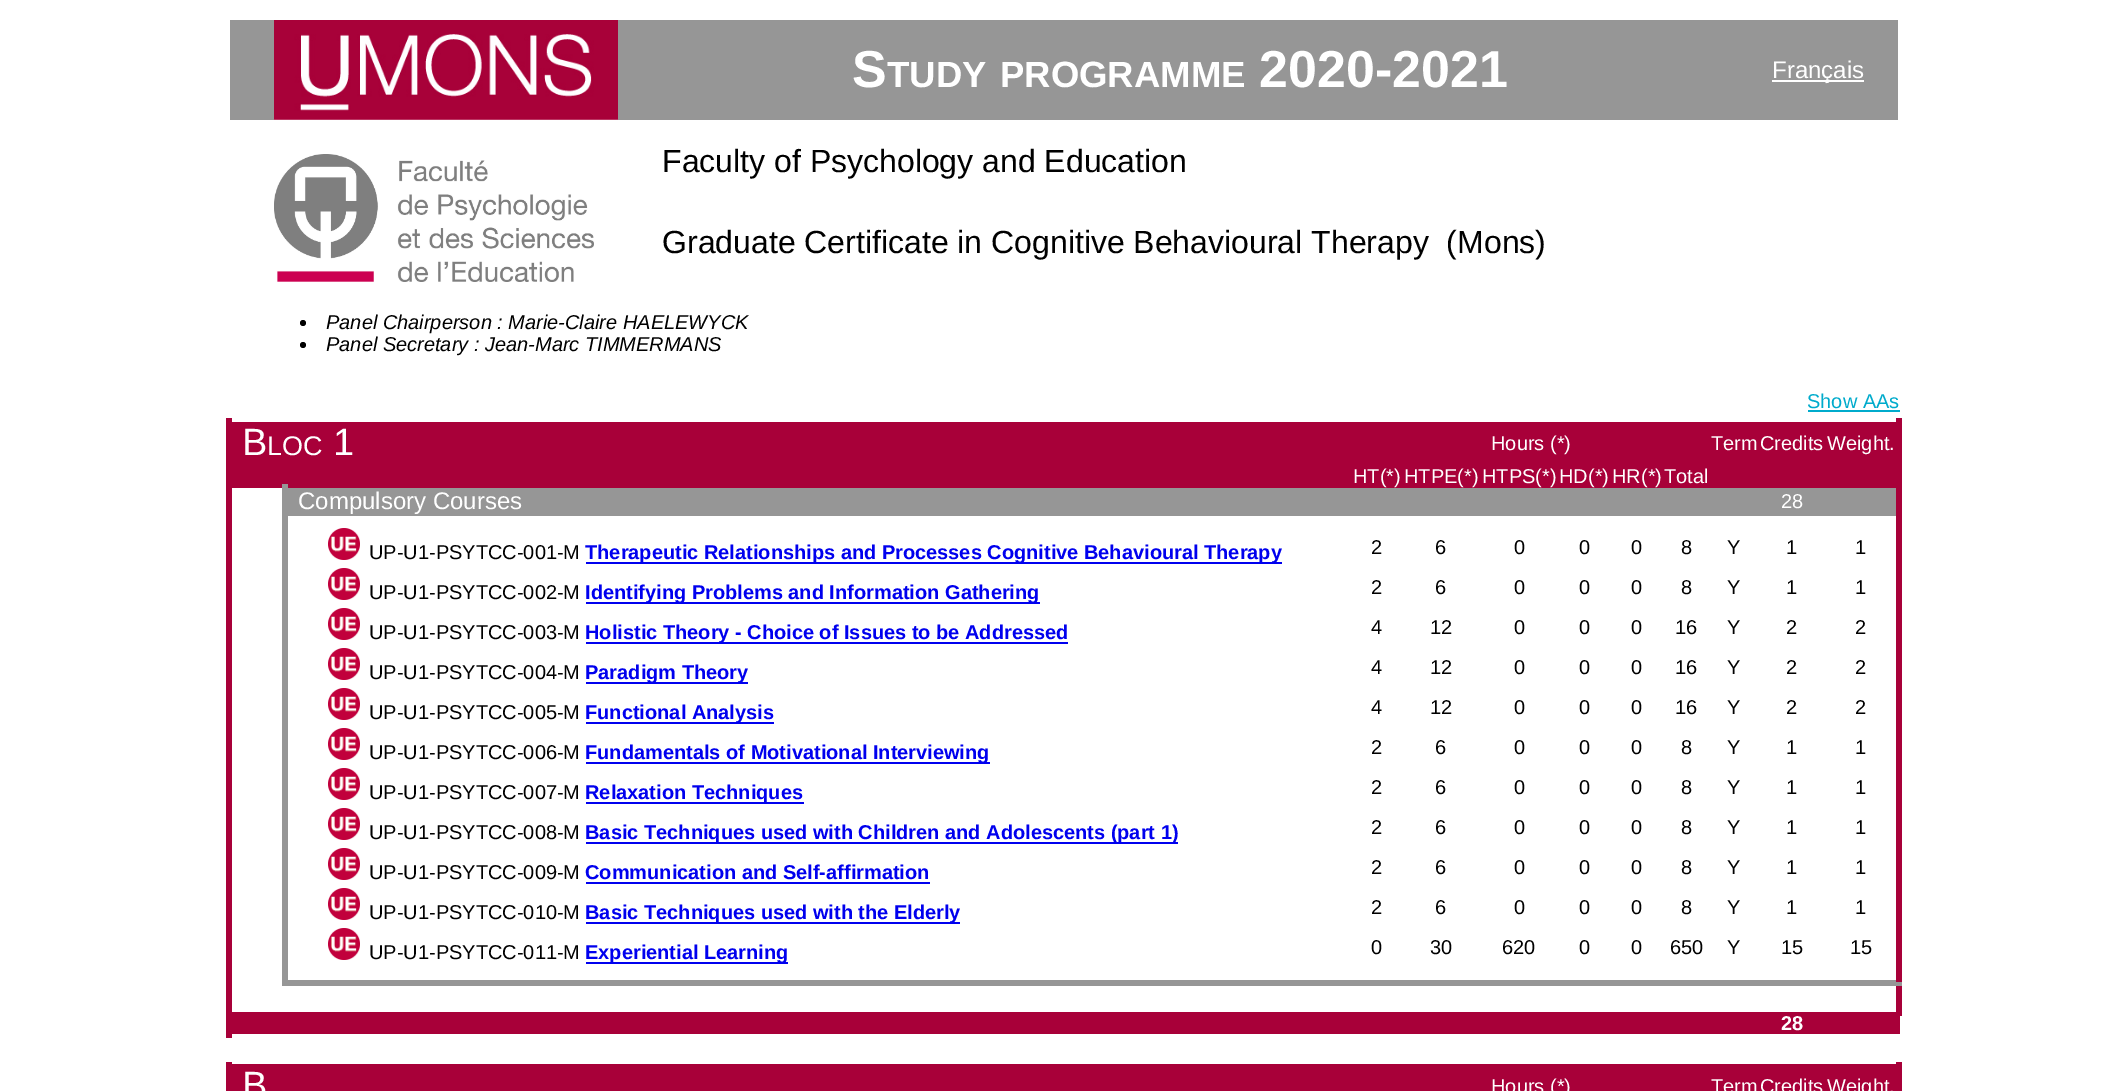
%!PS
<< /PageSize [2128 1091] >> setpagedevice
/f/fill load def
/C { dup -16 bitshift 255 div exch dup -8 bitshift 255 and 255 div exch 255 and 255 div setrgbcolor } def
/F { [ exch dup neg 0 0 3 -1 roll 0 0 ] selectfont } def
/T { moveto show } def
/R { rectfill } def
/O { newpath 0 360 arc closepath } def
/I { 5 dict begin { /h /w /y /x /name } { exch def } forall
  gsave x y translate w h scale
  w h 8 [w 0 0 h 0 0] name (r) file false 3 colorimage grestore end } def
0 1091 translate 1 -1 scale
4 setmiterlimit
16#FFFFFF C
0 0 2128 1091 R
16#969696 C
230 20 1668 100 R
(1.rgb) 274 20 344 100 I
/LiberationSans-Bold 52 F
16#FFFFFF C
(S) 852 87 T
/LiberationSans-Bold 36.5 F
(TUDY) 887 87 T
(PROGRAMME) 1000 87 T
/LiberationSans-Bold 52 F
(2020-2021) 1259 87 T
1772 80 92 2 R
/LiberationSans-Regular 24 F
(Français) 1772 78 T
(2.rgb) 274 154 320 128 I
/LiberationSans-Regular 32 F
16#000000 C
(Faculty of Psychology and Education) 662 172 T
(Graduate Certificate in Cognitive Behavioural Therapy  \(Mons\)) 662 253 T
303 323 3 O f
/LiberationSans-Italic 20 F
(Panel Chairperson : Marie-Claire HAELEWYCK) 326 329 T
303 345 3 O f
(Panel Secretary : Jean-Marc TIMMERMANS) 326 351 T
/LiberationSans-Regular 20 F
16#00ABCC C
(Show AAs) 1807 408 T
1808 410 92 2 R
16#A80039 C
232 422 1664 66 R
/LiberationSans-Regular 38 F
16#FFFFFF C
(B) 242 455 T
/LiberationSans-Regular 27 F
(LOC) 267 455 T
/LiberationSans-Regular 38 F
(1) 333 455 T
/LiberationSans-Regular 20 F
(Hours \(*\)) 1491 450 T
(Term) 1711 450 T
(Credits) 1760 450 T
(Weight.) 1827 450 T
16#A80039 C
232 1012 1668 22 R
1896 980 6 36 R
16#969696 C
282 980 1620 6 R
16#A80039 C
1896 418 6 564 R
16#FFFFFF C
(HT\(*\)) 1353 483 T
(HTPE\(*\)) 1404 483 T
(HTPS\(*\)) 1482 483 T
(HD\(*\)) 1559 483 T
(HR\(*\)) 1612 483 T
(Total) 1664 483 T
16#969696 C
282 484 6 502 R
288 488 1608 28 R
/LiberationSans-Regular 24 F
16#FFFFFF C
(Compulsory Courses) 298 509 T
/LiberationSans-Regular 20 F
(28) 1781 508 T
(3.rgb) 328 528 32 32 I
16#000000 C
(UP-U1-PSYTCC-001-M) 369 559 T
16#0000EE C
586 562 696 2 R
/LiberationSans-Bold 20 F
(Therapeutic Relationships and Processes Cognitive Behavioural Therapy) 585 559 T
/LiberationSans-Regular 20 F
16#000000 C
(2) 1371 554 T
(6) 1435 554 T
(0) 1514 554 T
(0) 1579 554 T
(0) 1631 554 T
(8) 1681 554 T
(Y) 1727 554 T
(1) 1786 554 T
(1) 1855 554 T
(3.rgb) 328 568 32 32 I
(UP-U1-PSYTCC-002-M) 369 599 T
16#0000EE C
586 602 454 2 R
/LiberationSans-Bold 20 F
(Identifying Problems and Information Gathering) 585 599 T
/LiberationSans-Regular 20 F
16#000000 C
(2) 1371 594 T
(6) 1435 594 T
(0) 1514 594 T
(0) 1579 594 T
(0) 1631 594 T
(8) 1681 594 T
(Y) 1727 594 T
(1) 1786 594 T
(1) 1855 594 T
(3.rgb) 328 608 32 32 I
(UP-U1-PSYTCC-003-M) 369 639 T
16#0000EE C
586 642 482 2 R
/LiberationSans-Bold 20 F
(Holistic Theory - Choice of Issues to be Addressed) 585 639 T
/LiberationSans-Regular 20 F
16#000000 C
(4) 1371 634 T
(12) 1430 634 T
(0) 1514 634 T
(0) 1579 634 T
(0) 1631 634 T
(16) 1675 634 T
(Y) 1727 634 T
(2) 1786 634 T
(2) 1855 634 T
(3.rgb) 328 648 32 32 I
(UP-U1-PSYTCC-004-M) 369 679 T
16#0000EE C
586 682 162 2 R
/LiberationSans-Bold 20 F
(Paradigm Theory) 585 679 T
/LiberationSans-Regular 20 F
16#000000 C
(4) 1371 674 T
(12) 1430 674 T
(0) 1514 674 T
(0) 1579 674 T
(0) 1631 674 T
(16) 1675 674 T
(Y) 1727 674 T
(2) 1786 674 T
(2) 1855 674 T
(3.rgb) 328 688 32 32 I
(UP-U1-PSYTCC-005-M) 369 719 T
16#0000EE C
586 722 188 2 R
/LiberationSans-Bold 20 F
(Functional Analysis) 585 719 T
/LiberationSans-Regular 20 F
16#000000 C
(4) 1371 714 T
(12) 1430 714 T
(0) 1514 714 T
(0) 1579 714 T
(0) 1631 714 T
(16) 1675 714 T
(Y) 1727 714 T
(2) 1786 714 T
(2) 1855 714 T
(3.rgb) 328 728 32 32 I
(UP-U1-PSYTCC-006-M) 369 759 T
16#0000EE C
586 762 404 2 R
/LiberationSans-Bold 20 F
(Fundamentals of Motivational Interviewing) 585 759 T
/LiberationSans-Regular 20 F
16#000000 C
(2) 1371 754 T
(6) 1435 754 T
(0) 1514 754 T
(0) 1579 754 T
(0) 1631 754 T
(8) 1681 754 T
(Y) 1727 754 T
(1) 1786 754 T
(1) 1855 754 T
(3.rgb) 328 768 32 32 I
(UP-U1-PSYTCC-007-M) 369 799 T
16#0000EE C
586 802 218 2 R
/LiberationSans-Bold 20 F
(Relaxation Techniques) 585 799 T
/LiberationSans-Regular 20 F
16#000000 C
(2) 1371 794 T
(6) 1435 794 T
(0) 1514 794 T
(0) 1579 794 T
(0) 1631 794 T
(8) 1681 794 T
(Y) 1727 794 T
(1) 1786 794 T
(1) 1855 794 T
(3.rgb) 328 808 32 32 I
(UP-U1-PSYTCC-008-M) 369 839 T
16#0000EE C
586 842 592 2 R
/LiberationSans-Bold 20 F
(Basic Techniques used with Children and Adolescents \(part 1\)) 585 839 T
/LiberationSans-Regular 20 F
16#000000 C
(2) 1371 834 T
(6) 1435 834 T
(0) 1514 834 T
(0) 1579 834 T
(0) 1631 834 T
(8) 1681 834 T
(Y) 1727 834 T
(1) 1786 834 T
(1) 1855 834 T
(3.rgb) 328 848 32 32 I
(UP-U1-PSYTCC-009-M) 369 879 T
/LiberationSans-Bold 20 F
16#0000EE C
(Communication and Self-affirmation) 585 879 T
586 882 344 2 R
/LiberationSans-Regular 20 F
16#000000 C
(2) 1371 874 T
(6) 1435 874 T
(0) 1514 874 T
(0) 1579 874 T
(0) 1631 874 T
(8) 1681 874 T
(Y) 1727 874 T
(1) 1786 874 T
(1) 1855 874 T
(3.rgb) 328 888 32 32 I
(UP-U1-PSYTCC-010-M) 369 919 T
16#0000EE C
586 922 374 2 R
/LiberationSans-Bold 20 F
(Basic Techniques used with the Elderly) 585 919 T
/LiberationSans-Regular 20 F
16#000000 C
(2) 1371 914 T
(6) 1435 914 T
(0) 1514 914 T
(0) 1579 914 T
(0) 1631 914 T
(8) 1681 914 T
(Y) 1727 914 T
(1) 1786 914 T
(1) 1855 914 T
(3.rgb) 328 928 32 32 I
(UP-U1-PSYTCC-011-M) 369 959 T
16#0000EE C
586 962 202 2 R
/LiberationSans-Bold 20 F
(Experiential Learning) 585 959 T
/LiberationSans-Regular 20 F
16#000000 C
(0) 1371 954 T
(30) 1430 954 T
(620) 1502 954 T
(0) 1579 954 T
(0) 1631 954 T
(650) 1670 954 T
(Y) 1727 954 T
(15) 1781 954 T
(15) 1850 954 T
16#A80039 C
226 418 6 620 R
/LiberationSans-Bold 20 F
16#FFFFFF C
(28) 1781 1030 T
16#A80039 C
232 1064 1664 27 R
226 1062 6 29 R
/LiberationSans-Regular 38 F
16#FFFFFF C
(B) 242 1098 T
/LiberationSans-Regular 20 F
(Hours \(*\)) 1491 1093 T
(Term) 1711 1093 T
(Credits) 1760 1093 T
16#A80039 C
1896 1062 6 29 R
16#FFFFFF C
(Weight.) 1827 1093 T
showpage
